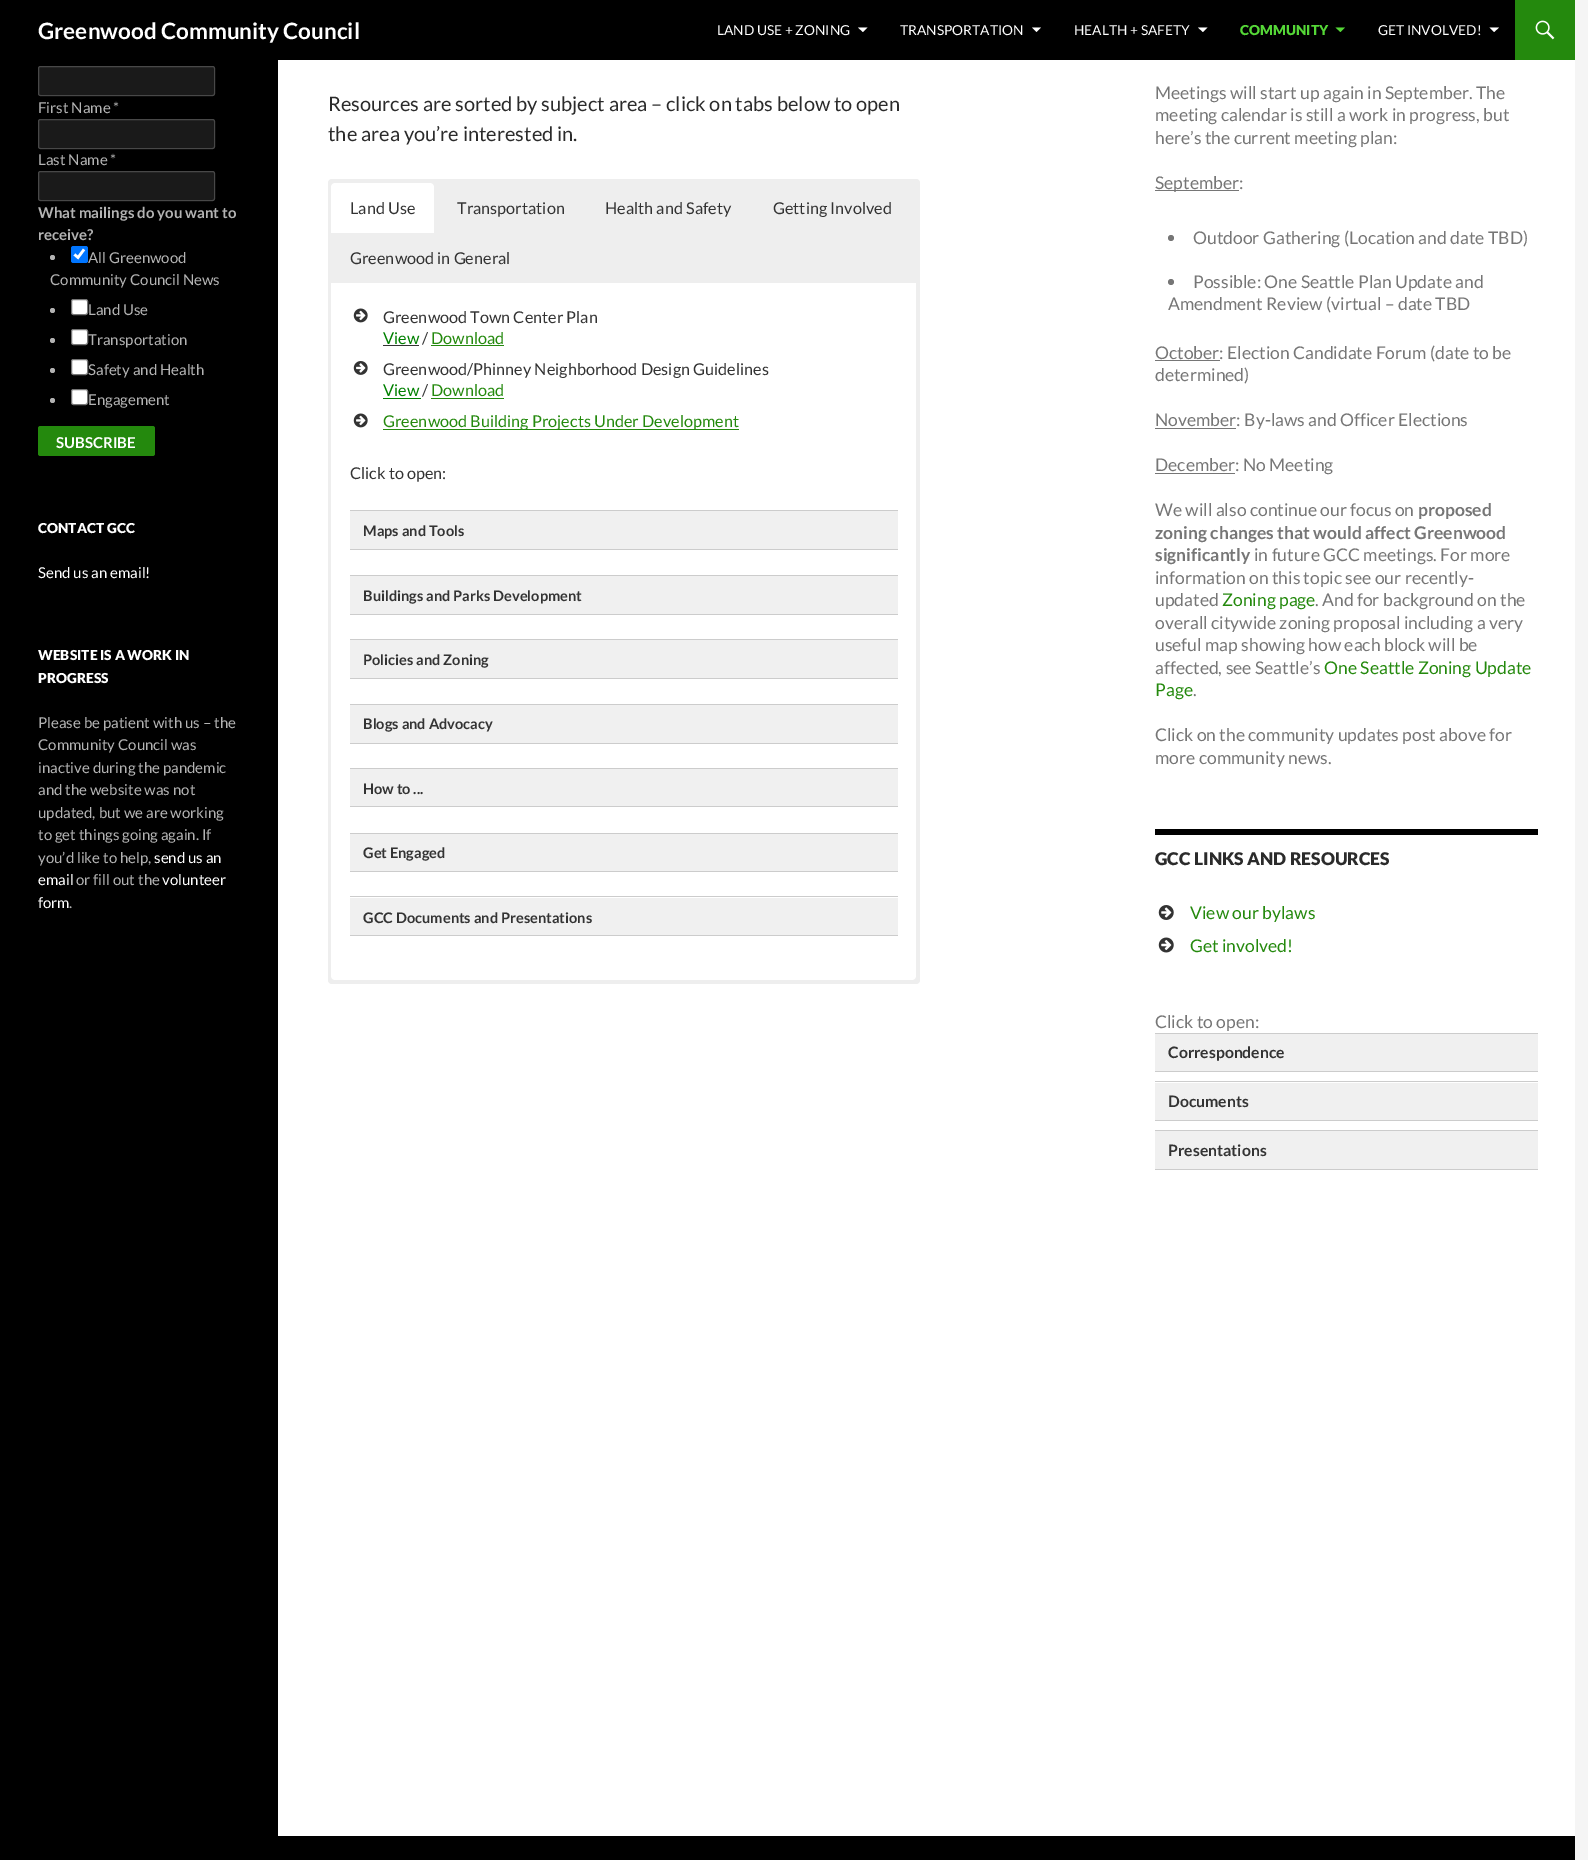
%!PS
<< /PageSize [1588 1860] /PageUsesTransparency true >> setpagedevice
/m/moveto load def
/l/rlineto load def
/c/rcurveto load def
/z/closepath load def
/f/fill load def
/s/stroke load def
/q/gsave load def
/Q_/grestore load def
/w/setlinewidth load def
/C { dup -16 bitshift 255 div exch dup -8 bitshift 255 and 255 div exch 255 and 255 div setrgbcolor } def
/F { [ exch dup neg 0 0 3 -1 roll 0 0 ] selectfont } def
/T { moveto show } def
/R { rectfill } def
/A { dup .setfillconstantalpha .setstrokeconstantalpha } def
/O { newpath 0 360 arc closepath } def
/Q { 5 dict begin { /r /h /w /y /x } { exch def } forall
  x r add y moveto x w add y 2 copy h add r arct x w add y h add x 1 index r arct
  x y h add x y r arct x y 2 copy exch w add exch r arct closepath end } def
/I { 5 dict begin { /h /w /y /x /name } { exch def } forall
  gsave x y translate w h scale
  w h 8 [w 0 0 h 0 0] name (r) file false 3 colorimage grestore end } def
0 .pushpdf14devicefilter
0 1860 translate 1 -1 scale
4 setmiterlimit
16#F5F5F5 C
0 0 1588 1860 R
16#FFFFFF C
278 60 1297 1776 R
16#000000 C
0 0 1515 60 R
/Lato-Bold 22.5 F
16#FFFFFF C
(Greenwood Community Council) 38 39 T
/Lato-Regular 13.75 F
(LAND USE + ZONING) 717 35 T
858 27.5 m 5 4.5 l 4.5 -4.5 l z f
(TRANSPORTATION) 900 35 T
1032 27.5 m 4.5 4.5 l 4.5 -4.5 l z f
(HEALTH + SAFETY) 1074 35 T
1198 27.5 m 5 4.5 l 4.5 -4.5 l z f
/Lato-Black 13.75 F
16#55D737 C
(COMMUNITY) 1240 35 T
1335.5 27.5 m 5 4.5 l 4.5 -4.5 l z f
/Lato-Regular 13.75 F
16#FFFFFF C
(GET INVOLVED!) 1378 35 T
1489.5 27.5 m 4.5 4.5 l 5 -4.5 l z f
16#24890D C
1515 0 60 60 R
(1.rgb) 1535 20 20 20 I
16#000000 C
0 60 278 1776 R
16#1A1A1A C
38 66 177 30 2.5 Q f
0.2 A
16#FFFFFF C
38.5 66.5 176 29 2 Q s
/Lato-Regular 15 F
1 A
16#B3B3B3 C
(First Name *) 38 113 T
16#1A1A1A C
38 119 177 30 2.5 Q f
0.2 A
16#FFFFFF C
38.5 119.5 176 29 2 Q s
1 A
16#B3B3B3 C
(Last Name *) 38 165 T
16#1A1A1A C
38 171 177 30 2.5 Q f
0.2 A
16#FFFFFF C
38.5 171.5 176 29 2 Q s
/Lato-Bold 15 F
1 A
16#B3B3B3 C
(What mailings do you want to) 38 218 T
(receive?) 38 240 T
52.5 257.5 2.5 O f
16#0075FF C
71 246 17 17 2.5 Q f
16#FFFFFF C
2.6 w
74.5 254.5 m 3.5 3 l 6 -8 l s
/Lato-Regular 15 F
16#B3B3B3 C
(All Greenwood) 88 263 T
(Community Council News) 50 285 T
52.5 310.5 2.5 O f
16#FFFFFF C
71.5 299.5 16 15 2 Q q f Q_
16#767676 C
1 w
s
16#B3B3B3 C
(Land Use) 88 315 T
52.5 340.5 2.5 O f
16#FFFFFF C
71.5 329.5 16 15 2 Q q f Q_
16#767676 C
s
16#B3B3B3 C
(Transportation) 88 345 T
52.5 370.5 2.5 O f
16#FFFFFF C
71.5 359.5 16 15 2 Q q f Q_
16#767676 C
s
16#B3B3B3 C
(Safety and Health) 88 375 T
52.5 400.5 2.5 O f
16#FFFFFF C
71.5 389.5 16 15 2 Q q f Q_
16#767676 C
s
16#B3B3B3 C
(Engagement) 88 405 T
16#24890D C
38 426 117 30 2.5 Q f
/Lato-Bold 15 F
16#FFFFFF C
(SUBSCRIBE) 56 448 T
/Lato-Black 13.75 F
(CONTACT GCC) 38 533 T
/Lato-Regular 15 F
(Send us an email!) 38 578 T
/Lato-Black 13.75 F
(WEBSITE IS A WORK IN) 38 660 T
(PROGRESS) 38 683 T
/Lato-Regular 15 F
16#B3B3B3 C
(Please be patient with us – the) 38 728 T
(Community Council was) 38 750 T
(inactive during the pandemic) 38 773 T
(and the website was not) 38 795 T
(updated, but we are working) 38 818 T
(to get things going again. If) 38 840 T
(you’d like to help,) 38 863 T
16#FFFFFF C
(send us an) 154 863 T
(email) 38 885 T
16#B3B3B3 C
(or fill out the) 76 885 T
16#FFFFFF C
(volunteer) 162 885 T
(form) 38 908 T
16#B3B3B3 C
(.) 69 908 T
/Lato-Regular 20 F
16#2B2B2B C
(Resources are sorted by subject area – click on tabs below to open) 328 111 T
(the area you’re interested in.) 328 141 T
16#EEEEEE C
328 179 592 805 4 Q f
16#FFFFFF C
335 183 m 95 0 l 2 0 4 2 4 4 c 0 46 l -103 0 l 0 -46 l 0 -2 2 -4 4 -4 c z f
/Lato-Regular 16.25 F
16#333333 C
(Land Use) 350 214 T
(Transportation) 457 214 T
(Health and Safety) 605 214 T
(Getting Involved) 773 214 T
(Greenwood in General) 350 264 T
16#FFFFFF C
331 283 m 585 0 l 0 693 l 0 2 -2 4 -4 4 c -577 0 l -2 0 -4 -2 -4 -4 c z f
(2.rgb) 353 308 15 15 I
16#333333 C
(Greenwood Town Center Plan) 383 323 T
16#008000 C
(View) 383 344 T
16#333333 C
383 345 36 1 R
(/) 422 344 T
16#24890D C
(Download) 431 344 T
431 345 73 1 R
(3.rgb) 353 361 15 14 I
16#333333 C
(Greenwood/Phinney Neighborhood Design Guidelines) 383 375 T
16#008000 C
(View) 383 396 T
383 398 38 1 R
16#333333 C
(/) 422 396 T
16#24890D C
(Download) 431 396 T
431 398 73 1 R
(2.rgb) 353 413 15 15 I
383 429 356 1 R
(Greenwood Building Projects Under Development) 383 427 T
16#333333 C
(Click to open:) 350 479 T
16#CCCCCC C
350 510 548 1 R
350 549 548 1 R
16#F0F0F0 C
350 511 548 38 R
/Lato-Bold 14.6 F
16#333333 C
(Maps and Tools) 363 536 T
16#CCCCCC C
350 575 548 1 R
350 614 548 1 R
16#F0F0F0 C
350 576 548 38 R
16#333333 C
(Buildings and Parks Development) 363 601 T
16#CCCCCC C
350 639 548 1 R
350 678 548 1 R
16#F0F0F0 C
350 640 548 38 R
16#333333 C
(Policies and Zoning) 363 665 T
16#CCCCCC C
350 704 548 1 R
350 743 548 1 R
16#F0F0F0 C
350 705 548 38 R
16#333333 C
(Blogs and Advocacy) 363 729 T
16#CCCCCC C
350 768 548 1 R
350 806 548 1 R
16#F0F0F0 C
350 769 548 37 R
16#333333 C
(How to ...) 363 794 T
16#CCCCCC C
350 833 548 1 R
350 871 548 1 R
16#F0F0F0 C
350 834 548 37 R
16#333333 C
(Get Engaged) 363 858 T
16#CCCCCC C
350 896 548 1 R
350 935 548 1 R
16#F0F0F0 C
350 898 548 37 R
16#333333 C
(GCC Documents and Presentations) 363 923 T
/Lato-Regular 17.5 F
16#767676 C
(Meetings will start up again in September. The) 1155 99 T
(meeting calendar is still a work in progress, but) 1155 121 T
(here’s the current meeting plan:) 1155 144 T
1155 190 84 1 R
(September:) 1155 189 T
1171 238 3 O f
(Outdoor Gathering \(Location and date TBD\)) 1193 244 T
1171 282 3 O f
(Possible: One Seattle Plan Update and) 1193 288 T
(Amendment Review \(virtual – date TBD) 1168 310 T
1155 360 65 1 R
(October: Election Candidate Forum \(date to be) 1155 359 T
(determined\)) 1155 381 T
1155 428 81 1 R
(November: By-laws and Officer Elections) 1155 426 T
1155 473 80 1 R
(December: No Meeting) 1155 471 T
(We will also continue our focus on) 1155 516 T
/Lato-Bold 17.5 F
(proposed) 1418 516 T
(zoning changes that would affect Greenwood) 1155 539 T
(significantly) 1155 561 T
/Lato-Regular 17.5 F
(in future GCC meetings. For more) 1254 561 T
(information on this topic see our recently-) 1155 584 T
(updated) 1155 606 T
16#24890D C
(Zoning page) 1222 606 T
16#767676 C
(. And for background on the) 1315 606 T
(overall citywide zoning proposal including a very) 1155 629 T
(useful map showing how each block will be) 1155 651 T
(affected, see Seattle’s) 1155 674 T
16#24890D C
(One Seattle Zoning Update) 1324 674 T
(Page) 1155 696 T
16#767676 C
(.) 1193 696 T
(Click on the community updates post above for) 1155 741 T
(more community news.) 1155 764 T
16#000000 C
1155 829 383 6 R
/Lato-Black 17.5 F
16#2B2B2B C
(GCC LINKS AND RESOURCES) 1155 865 T
(4.rgb) 1158 905 16 15 I
/Lato-Regular 17.5 F
16#24890D C
(View our bylaws) 1190 919 T
(5.rgb) 1158 937 16 16 I
(Get involved!) 1190 952 T
16#767676 C
(Click to open:) 1155 1028 T
16#CCCCCC C
1155 1033 383 1 R
1155 1071 383 1 R
16#F0F0F0 C
1155 1034 383 37 R
/Lato-Bold 15.75 F
16#333333 C
(Correspondence) 1168 1058 T
16#CCCCCC C
1155 1081 383 1 R
1155 1120 383 1 R
16#F0F0F0 C
1155 1083 383 37 R
16#333333 C
(Documents) 1168 1107 T
16#CCCCCC C
1155 1130 383 1 R
1155 1169 383 1 R
16#F0F0F0 C
1155 1131 383 38 R
16#333333 C
(Presentations) 1168 1156 T
16#000000 C
0 1836 1575 24 R
.poppdf14devicefilter showpage
